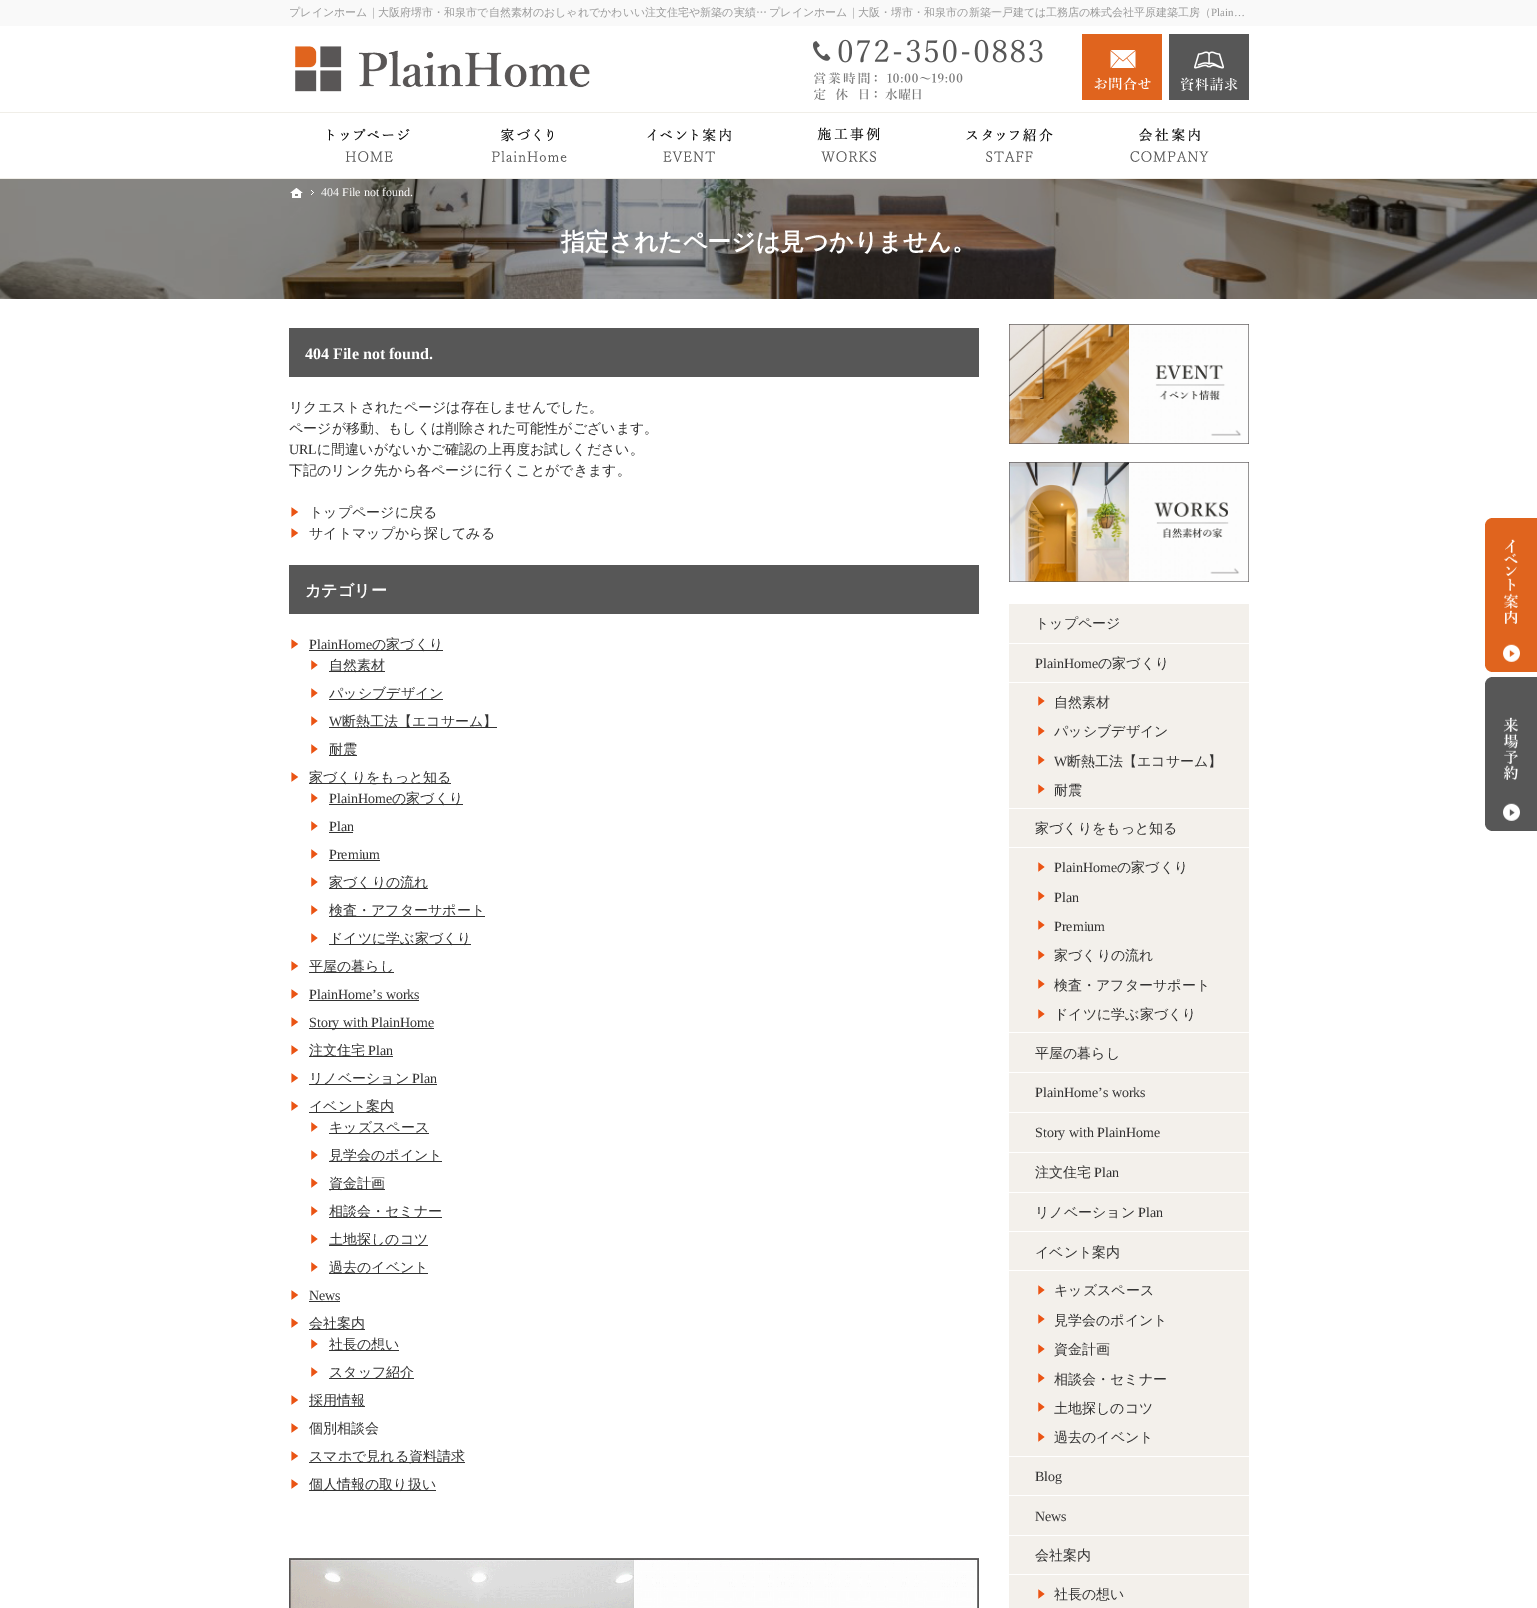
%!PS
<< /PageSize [1537 1608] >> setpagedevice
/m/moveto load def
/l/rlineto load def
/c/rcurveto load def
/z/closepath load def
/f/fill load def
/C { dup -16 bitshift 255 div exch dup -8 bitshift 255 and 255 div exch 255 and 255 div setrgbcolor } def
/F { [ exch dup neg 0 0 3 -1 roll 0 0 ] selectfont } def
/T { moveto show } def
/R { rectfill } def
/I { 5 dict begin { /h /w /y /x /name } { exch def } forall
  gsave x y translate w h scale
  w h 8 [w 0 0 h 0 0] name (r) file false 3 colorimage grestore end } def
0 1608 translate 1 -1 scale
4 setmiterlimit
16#FFFFFF C
0 0 1537 1608 R
(1.rgb) 0 179 1537 120 I
16#F9F9F9 C
0 0 1537 26 R
/WenQuanYiZenHei-Medium 11 F
16#999999 C
(プレインホーム｜大阪府堺市・和泉市で自然素材のおしゃれでかわいい注文住宅や新築の実績…) 289 16 T
(プレインホーム｜大阪・堺市・和泉市の新築一戸建ては工務店の株式会社平原建築工房（) 769 16 T
/LiberationSerif-Regular 11 F
(Plain…) 1211 16 T
(2.rgb) 295 46 295 46 I
/WenQuanYiZenHei-Bold 24 F
16#FFFFFF C
(指定されたページは見つかりません。) 561 250 T
(3.rgb) 813 39 230 61 I
16#E0641E C
1082 34 80 66 R
(4.rgb) 1094 50 57 40 I
16#575757 C
1169 34 80 66 R
(5.rgb) 1180 51 58 40 I
16#F0EEE8 C
0 112 1537 1 R
0 178 1537 1 R
(6.rgb) 328 128 82 34 I
(7.rgb) 491 128 76 34 I
(8.rgb) 647 128 84 34 I
(9.rgb) 817 127 63 35 I
(10.rgb) 966 128 87 34 I
(11.rgb) 1130 128 79 34 I
(12.rgb) 290 188 13 10 I
(13.rgb) 311 190 3 5 I
/LiberationSerif-Regular 12 F
16#FFFFFF C
(404 File not found.) 321 196 T
16#575757 C
289 328 690 49 R
/LiberationSerif-Bold 16 F
16#FFFFFF C
(404 File not found.) 305 359 T
/WenQuanYiZenHei-Medium 14 F
16#333333 C
(リクエストされたページは存在しませんでした。) 289 412 T
(ページが移動、もしくは削除された可能性がございます。) 289 433 T
/LiberationSerif-Regular 14 F
(URL) 289 454 T
/WenQuanYiZenHei-Medium 14 F
(に間違いがないかご確認の上再度お試しください。) 317 454 T
(下記のリンク先から各ページに行くことができます。) 289 475 T
(14.rgb) 291 507 8 10 I
(トップページに戻る) 309 517 T
(14.rgb) 291 528 8 10 I
(サイトマップから探してみる) 309 538 T
16#575757 C
289 565 690 49 R
/WenQuanYiZenHei-Bold 16 F
16#FFFFFF C
(カテゴリー) 305 596 T
(14.rgb) 291 639 8 10 I
/LiberationSerif-Regular 14 F
16#333333 C
(PlainHome) 309 649 T
309 650 134 1 R
/WenQuanYiZenHei-Medium 14 F
(の家づくり) 372 649 T
(15.rgb) 311 660 7 10 I
329 671 56 1 R
(自然素材) 329 670 T
(15.rgb) 311 688 7 10 I
329 699 114 1 R
(パッシブデザイン) 329 698 T
(15.rgb) 311 716 7 10 I
/LiberationSerif-Regular 14 F
(W) 329 726 T
329 727 168 1 R
/WenQuanYiZenHei-Medium 14 F
(断熱工法【エコサーム】) 342 726 T
(15.rgb) 311 744 7 10 I
329 755 28 1 R
(耐震) 329 754 T
(14.rgb) 291 772 8 10 I
309 783 142 1 R
(家づくりをもっと知る) 309 782 T
(15.rgb) 311 793 7 10 I
/LiberationSerif-Regular 14 F
(PlainHome) 329 803 T
329 804 134 1 R
/WenQuanYiZenHei-Medium 14 F
(の家づくり) 392 803 T
(15.rgb) 311 821 7 10 I
/LiberationSerif-Regular 14 F
(Plan) 329 831 T
329 832 24 1 R
(15.rgb) 311 849 7 10 I
(Premium) 329 859 T
329 860 51 1 R
(15.rgb) 311 877 7 10 I
329 888 99 1 R
/WenQuanYiZenHei-Medium 14 F
(家づくりの流れ) 329 887 T
(15.rgb) 311 905 7 10 I
329 916 156 1 R
(検査・アフターサポート) 329 915 T
(15.rgb) 311 933 7 10 I
329 944 142 1 R
(ドイツに学ぶ家づくり) 329 943 T
(14.rgb) 291 961 8 10 I
309 972 85 1 R
(平屋の暮らし) 309 971 T
(14.rgb) 291 989 8 10 I
/LiberationSerif-Regular 14 F
(PlainHome’s works) 309 999 T
309 1000 110 1 R
(14.rgb) 291 1017 8 10 I
309 1028 125 1 R
(Story with PlainHome) 309 1027 T
(14.rgb) 291 1045 8 10 I
309 1056 84 1 R
/WenQuanYiZenHei-Medium 14 F
(注文住宅) 309 1055 T
/LiberationSerif-Regular 14 F
(Plan) 368 1055 T
(14.rgb) 291 1073 8 10 I
309 1084 128 1 R
/WenQuanYiZenHei-Medium 14 F
(リノベーション) 309 1083 T
/LiberationSerif-Regular 14 F
(Plan) 412 1083 T
(14.rgb) 291 1101 8 10 I
309 1112 85 1 R
/WenQuanYiZenHei-Medium 14 F
(イベント案内) 309 1111 T
(15.rgb) 311 1122 7 10 I
329 1133 100 1 R
(キッズスペース) 329 1132 T
(15.rgb) 311 1150 7 10 I
329 1161 113 1 R
(見学会のポイント) 329 1160 T
(15.rgb) 311 1178 7 10 I
329 1189 56 1 R
(資金計画) 329 1188 T
(15.rgb) 311 1206 7 10 I
329 1217 113 1 R
(相談会・セミナー) 329 1216 T
(15.rgb) 311 1234 7 10 I
329 1245 99 1 R
(土地探しのコツ) 329 1244 T
(15.rgb) 311 1262 7 10 I
329 1273 99 1 R
(過去のイベント) 329 1272 T
(14.rgb) 291 1290 8 10 I
/LiberationSerif-Regular 14 F
(News) 309 1300 T
309 1301 31 1 R
(14.rgb) 291 1318 8 10 I
309 1329 56 1 R
/WenQuanYiZenHei-Medium 14 F
(会社案内) 309 1328 T
(15.rgb) 311 1339 7 10 I
329 1350 70 1 R
(社長の想い) 329 1349 T
(15.rgb) 311 1367 7 10 I
329 1378 85 1 R
(スタッフ紹介) 329 1377 T
(14.rgb) 291 1395 8 10 I
309 1406 56 1 R
(採用情報) 309 1405 T
(14.rgb) 291 1423 8 10 I
(個別相談会) 309 1433 T
(14.rgb) 291 1451 8 10 I
309 1462 156 1 R
(スマホで見れる資料請求) 309 1461 T
(14.rgb) 291 1479 8 10 I
309 1490 127 1 R
(個人情報の取り扱い) 309 1489 T
(16.rgb) 289 1558 690 50 I
(17.rgb) 1009 324 240 120 I
(18.rgb) 1009 462 240 120 I
16#F3F0EB C
1009 604 240 1004 R
16#FFFFFF C
1009 643 240 1 R
16#333333 C
(トップページ) 1035 628 T
16#FFFFFF C
1009 808 240 1 R
/LiberationSerif-Regular 14 F
16#333333 C
(PlainHome) 1035 668 T
/WenQuanYiZenHei-Medium 14 F
(の家づくり) 1098 668 T
16#FFFFFF C
1009 682 240 1 R
(19.rgb) 1038 696 7 10 I
16#333333 C
(自然素材) 1054 707 T
(19.rgb) 1038 726 7 10 I
(パッシブデザイン) 1054 736 T
(19.rgb) 1038 755 7 10 I
/LiberationSerif-Regular 14 F
(W) 1054 766 T
/WenQuanYiZenHei-Medium 14 F
(断熱工法【エコサーム】) 1067 766 T
(19.rgb) 1038 784 7 10 I
(耐震) 1054 795 T
16#FFFFFF C
1009 1032 240 1 R
16#333333 C
(家づくりをもっと知る) 1035 833 T
16#FFFFFF C
1009 847 240 1 R
(19.rgb) 1038 862 7 10 I
/LiberationSerif-Regular 14 F
16#333333 C
(PlainHome) 1054 872 T
/WenQuanYiZenHei-Medium 14 F
(の家づくり) 1117 872 T
(19.rgb) 1038 891 7 10 I
/LiberationSerif-Regular 14 F
(Plan) 1054 902 T
(19.rgb) 1038 920 7 10 I
(Premium) 1054 931 T
(19.rgb) 1038 950 7 10 I
/WenQuanYiZenHei-Medium 14 F
(家づくりの流れ) 1054 960 T
(19.rgb) 1038 979 7 10 I
(検査・アフターサポート) 1054 990 T
(19.rgb) 1038 1009 7 10 I
(ドイツに学ぶ家づくり) 1054 1019 T
16#FFFFFF C
1009 1072 240 1 R
16#333333 C
(平屋の暮らし) 1035 1058 T
16#FFFFFF C
1009 1112 240 1 R
/LiberationSerif-Regular 14 F
16#333333 C
(PlainHome’s works) 1035 1097 T
16#FFFFFF C
1009 1152 240 1 R
16#333333 C
(Story with PlainHome) 1035 1137 T
16#FFFFFF C
1009 1192 240 1 R
/WenQuanYiZenHei-Medium 14 F
16#333333 C
(注文住宅) 1035 1177 T
/LiberationSerif-Regular 14 F
(Plan) 1094 1177 T
16#FFFFFF C
1009 1231 240 1 R
/WenQuanYiZenHei-Medium 14 F
16#333333 C
(リノベーション) 1035 1217 T
/LiberationSerif-Regular 14 F
(Plan) 1138 1217 T
16#FFFFFF C
1009 1456 240 1 R
/WenQuanYiZenHei-Medium 14 F
16#333333 C
(イベント案内) 1035 1257 T
16#FFFFFF C
1009 1270 240 1 R
(19.rgb) 1038 1285 7 10 I
16#333333 C
(キッズスペース) 1054 1295 T
(19.rgb) 1038 1314 7 10 I
(見学会のポイント) 1054 1325 T
(19.rgb) 1038 1344 7 10 I
(資金計画) 1054 1354 T
(19.rgb) 1038 1373 7 10 I
(相談会・セミナー) 1054 1384 T
(19.rgb) 1038 1402 7 10 I
(土地探しのコツ) 1054 1413 T
(19.rgb) 1038 1432 7 10 I
(過去のイベント) 1054 1442 T
16#FFFFFF C
1009 1495 240 1 R
/LiberationSerif-Regular 14 F
16#333333 C
(Blog) 1035 1481 T
16#FFFFFF C
1009 1535 240 1 R
16#333333 C
(News) 1035 1521 T
/WenQuanYiZenHei-Medium 14 F
(会社案内) 1035 1560 T
16#FFFFFF C
1009 1574 240 1 R
(19.rgb) 1038 1589 7 10 I
16#333333 C
(社長の想い) 1054 1599 T
16#E0641E C
1493 518 m 44 0 l 0 154 l -44 0 l -4.5 0 -8 -3.5 -8 -8 c 0 -138 l 0 -4.5 3.5 -8 8 -8 c z f
(20.rgb) 1503 539 17 123 I
16#575757 C
1493 677 m 44 0 l 0 154 l -44 0 l -4.5 0 -8 -3.5 -8 -8 c 0 -138 l 0 -4.5 3.5 -8 8 -8 c z f
(21.rgb) 1503 717 17 104 I
showpage
